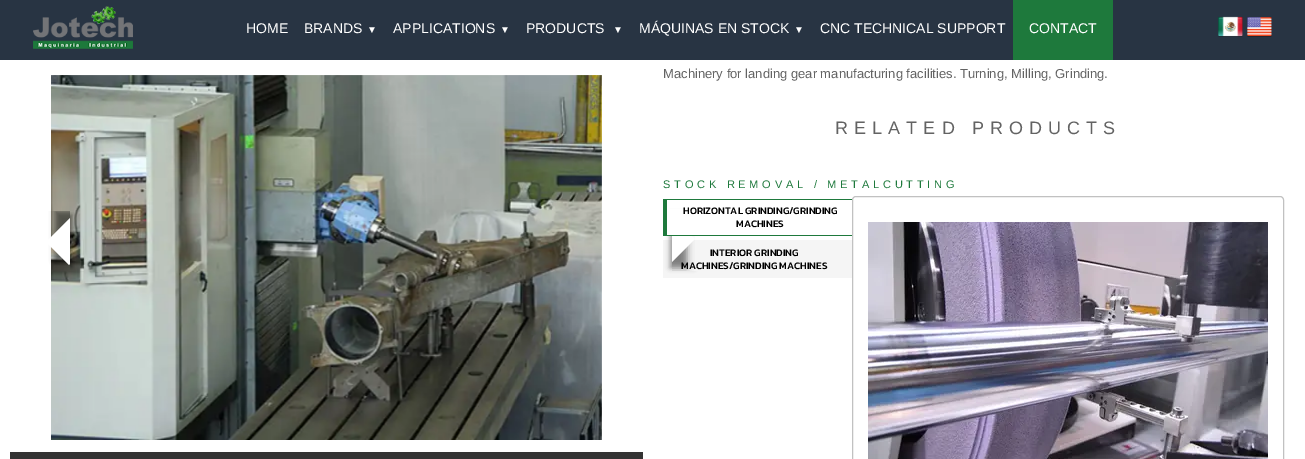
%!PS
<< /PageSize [1305 459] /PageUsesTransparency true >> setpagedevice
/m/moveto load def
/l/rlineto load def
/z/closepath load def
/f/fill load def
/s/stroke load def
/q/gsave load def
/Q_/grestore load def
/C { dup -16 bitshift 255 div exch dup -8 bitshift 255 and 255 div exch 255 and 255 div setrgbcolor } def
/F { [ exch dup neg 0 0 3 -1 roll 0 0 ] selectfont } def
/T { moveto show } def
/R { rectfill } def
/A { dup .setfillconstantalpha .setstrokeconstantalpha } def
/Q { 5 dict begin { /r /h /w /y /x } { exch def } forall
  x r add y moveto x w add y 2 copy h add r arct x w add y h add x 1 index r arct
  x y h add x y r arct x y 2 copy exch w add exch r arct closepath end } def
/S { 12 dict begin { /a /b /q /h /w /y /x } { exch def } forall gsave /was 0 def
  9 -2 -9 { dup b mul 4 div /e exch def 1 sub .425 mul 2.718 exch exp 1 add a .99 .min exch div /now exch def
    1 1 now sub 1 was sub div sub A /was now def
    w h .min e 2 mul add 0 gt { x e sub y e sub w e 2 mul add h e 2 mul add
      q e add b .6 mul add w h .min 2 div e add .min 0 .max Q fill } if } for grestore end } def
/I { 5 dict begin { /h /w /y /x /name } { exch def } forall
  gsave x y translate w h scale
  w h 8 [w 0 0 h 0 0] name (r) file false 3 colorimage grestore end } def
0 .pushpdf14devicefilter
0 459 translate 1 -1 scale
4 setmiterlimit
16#FFFFFF C
0 0 1305 459 R
16#283443 C
0 0 1305 60 R
(1.rgb) 33 6 100 43 I
/LiberationSans-Regular 14 F
16#FFFFFF C
(HOME) 246 33 T
(BRANDS) 304 33 T
/LiberationSans-Regular 10 F
(▼) 367 33 T
/LiberationSans-Regular 14 F
(APPLICATIONS) 393 33 T
/LiberationSans-Regular 10 F
(▼) 500 33 T
/LiberationSans-Regular 14 F
(PRODUCTS) 526 33 T
/LiberationSans-Regular 10 F
(▼) 613 33 T
/LiberationSans-Regular 14 F
(MÁQUINAS EN STOCK) 639 33 T
/LiberationSans-Regular 10 F
(▼) 794 33 T
/LiberationSans-Regular 14 F
(CNC TECHNICAL SUPPORT) 820 33 T
16#1E793C C
1013 0 100 60 R
16#FFFFFF C
(CONTACT) 1029 33 T
(2.rgb) 1218 16 25 21 I
(3.rgb) 1247 17 25 20 I
(4.rgb) 51 75 551 365 I
16#333333 C
10 452 633 7 R
q
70 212 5 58 rectclip
16#000000 C
50 215 22 52 0 2 .4 S
Q_
q
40 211 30 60 rectclip
16#000000 C
55 211 41 50 0 3 .5 S
Q_
q
40 211 30 60 rectclip
16#FFFFFF C
76 212 m 23 23 l -30 30 l -23 -23 l z f
Q_
16#F5F5F5 C
663 240 189 38 R
q
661 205 m 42 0 l 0 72 l -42 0 l z 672 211 m 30 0 l 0 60 l -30 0 l z eoclip newpath
16#000000 C
670 214 24 54 0 2.5 .4 S
Q_
q
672 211 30 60 rectclip
16#000000 C
648 220 39 48 0 3.5 .5 S
Q_
q
672 211 30 60 rectclip
16#FFFFFF C
672 216 m 23 23 l -30 30 l -23 -23 l z f
Q_
/LiberationSans-Regular 13 F
16#636363 C
(Machinery for landing gear manufacturing facilities. Turning, Milling, Grinding.) 663 78 T
/LiberationSans-Regular 18 F
835 134 m 6.1 0 (RELATED PRODUCTS) ashow
/LiberationSans-Regular 11.05 F
16#1E793C C
663 188 m 3.75 0 (STOCK REMOVAL / METALCUTTING) ashow
16#FFFFFF C
667 209 28 26 R
16#1E793C C
663 199 189 1 R
663 235 189 1 R
663 199 4 37 R
/Kanit-Medium 10 F
16#000000 C
(HORIZONTAL GRINDING/GRINDING) 683 214 T
(MACHINES) 736 227 T
(INTERIOR GRINDING) 710 256 T
(MACHINES/GRINDING MACHINES) 681 269 T
16#C1C1C1 C
852.5 196.5 431 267 3.5 Q s
(5.rgb) 868 222 400 237 I
.poppdf14devicefilter showpage
